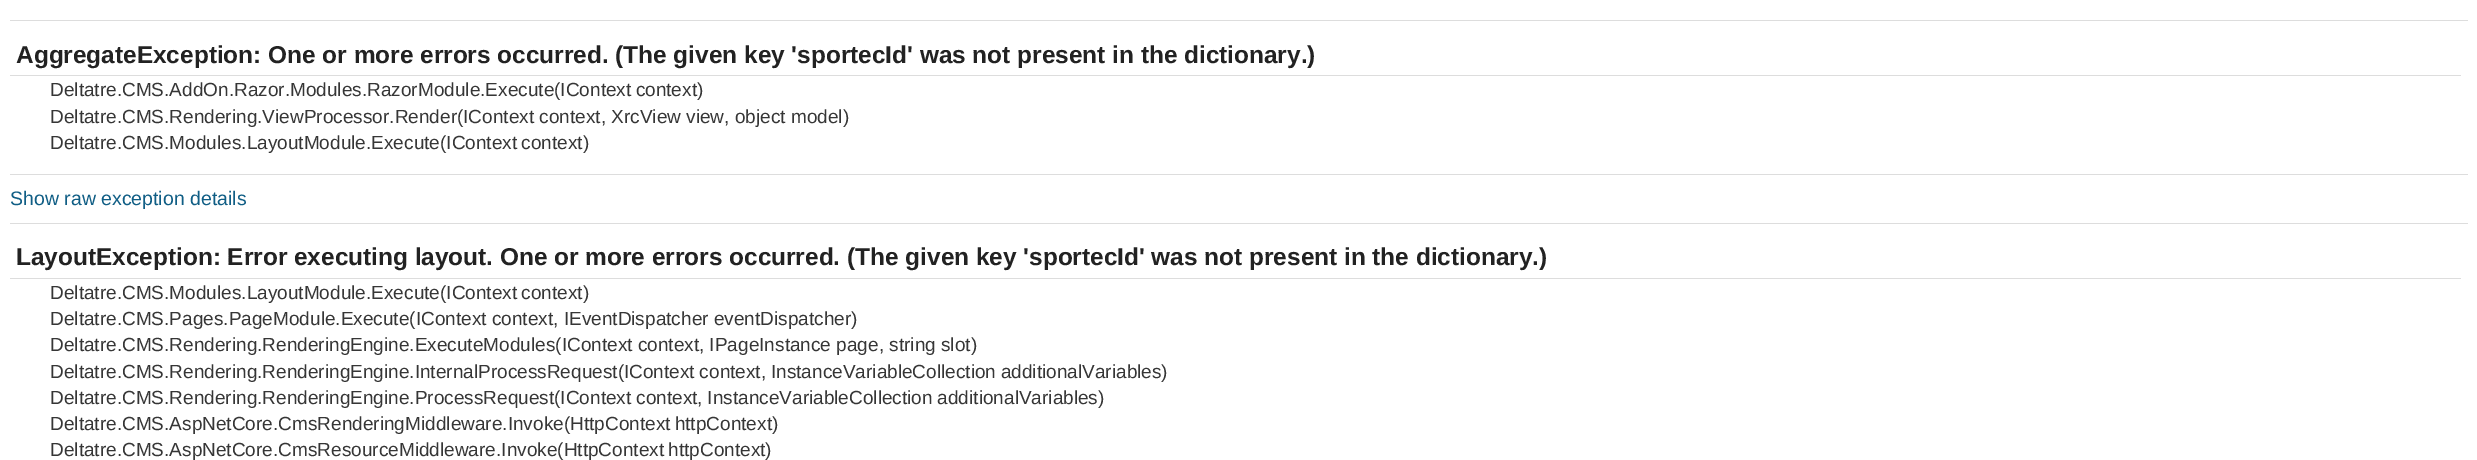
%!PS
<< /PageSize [2477 460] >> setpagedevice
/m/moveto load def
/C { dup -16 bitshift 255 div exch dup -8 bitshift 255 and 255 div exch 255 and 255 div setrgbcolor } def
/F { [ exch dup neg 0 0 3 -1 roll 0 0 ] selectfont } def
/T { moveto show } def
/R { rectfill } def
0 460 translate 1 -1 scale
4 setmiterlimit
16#FFFFFF C
0 0 2477 460 R
16#DDDDDD C
10 20 2458 1 R
10 75 2451 1 R
/LiberationSans-Bold 24.4 F
16#222222 C
(AggregateException: One or more errors occurred. \(The given key 'sportecId' was not present in the dictionary.\)) 16 63 T
/LiberationSans-Regular 19.02 F
16#363636 C
50 96 m -1 0 32 (Deltatre.CMS.AddOn.Razor.Modules.RazorModule.Execute\(IContext context\)) widthshow
(Deltatre.CMS.Rendering.ViewProcessor.Render\(IContext context, XrcView view, object model\)) 50 123 T
50 149 m -1 0 32 (Deltatre.CMS.Modules.LayoutModule.Execute\(IContext context\)) widthshow
16#DDDDDD C
10 174 2458 1 R
10 223 2458 1 R
/LiberationSans-Regular 19.5 F
16#105E85 C
(Show raw exception details) 10 205 T
16#DDDDDD C
10 278 2451 1 R
/LiberationSans-Bold 24.4 F
16#222222 C
(LayoutException: Error executing layout. One or more errors occurred. \(The given key 'sportecId' was not present in the dictionary.\)) 16 265 T
/LiberationSans-Regular 19.02 F
16#363636 C
50 299 m -1 0 32 (Deltatre.CMS.Modules.LayoutModule.Execute\(IContext context\)) widthshow
(Deltatre.CMS.Pages.PageModule.Execute\(IContext context, IEventDispatcher eventDispatcher\)) 50 325 T
(Deltatre.CMS.Rendering.RenderingEngine.ExecuteModules\(IContext context, IPageInstance page, string slot\)) 50 351 T
50 378 m -.5 0 32 (Deltatre.CMS.Rendering.RenderingEngine.InternalProcessRequest\(IContext context, InstanceVariableCollection additionalVariables\)) widthshow
50 404 m -.5 0 32 (Deltatre.CMS.Rendering.RenderingEngine.ProcessRequest\(IContext context, InstanceVariableCollection additionalVariables\)) widthshow
50 430 m -1 0 32 (Deltatre.CMS.AspNetCore.CmsRenderingMiddleware.Invoke\(HttpContext httpContext\)) widthshow
50 456 m -1 0 32 (Deltatre.CMS.AspNetCore.CmsResourceMiddleware.Invoke\(HttpContext httpContext\)) widthshow
showpage
